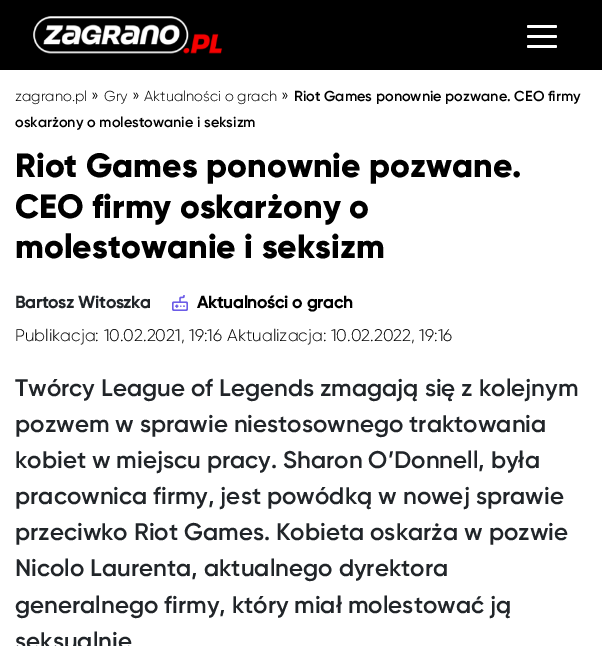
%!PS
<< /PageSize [602 646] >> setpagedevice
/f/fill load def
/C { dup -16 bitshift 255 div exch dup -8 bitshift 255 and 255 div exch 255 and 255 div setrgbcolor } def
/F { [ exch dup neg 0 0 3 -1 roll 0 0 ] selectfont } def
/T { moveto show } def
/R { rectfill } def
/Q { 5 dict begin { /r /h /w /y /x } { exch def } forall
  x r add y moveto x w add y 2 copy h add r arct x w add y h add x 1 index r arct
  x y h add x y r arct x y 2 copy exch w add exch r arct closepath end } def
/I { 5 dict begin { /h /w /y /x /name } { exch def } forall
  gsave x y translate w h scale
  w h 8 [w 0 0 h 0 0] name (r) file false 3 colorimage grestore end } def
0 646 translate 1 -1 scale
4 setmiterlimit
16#FFFFFF C
0 0 602 646 R
16#000000 C
0 0 602 70 R
(1.rgb) 33 16 190 38 I
16#FFFFFF C
527 25 30 3 1.5 Q f
527 35 30 3 1.5 Q f
527 45 30 3 1.5 Q f
/Gilroy-Light 14.5 F
16#000000 C
(zagrano.pl) 15 101 T
/Gilroy-Light 16.9 F
(») 91 101 T
/Gilroy-Light 14.5 F
(Gry) 104 101 T
/Gilroy-Light 16.9 F
(») 132 101 T
/Gilroy-Light 14.5 F
(Aktualności o grach) 144 101 T
/Gilroy-Light 16.9 F
(») 281 101 T
/Gilroy-Regular 14.5 F
(Riot Games ponownie pozwane. CEO firmy) 294 101 T
(oskarżony o molestowanie i seksizm) 15 127 T
/Gilroy-ExtraBold 33.75 F
(Riot Games ponownie pozwane.) 15 177 T
(CEO firmy oskarżony o) 15 218 T
(molestowanie i seksizm) 15 258 T
/Gilroy-Bold 16.9 F
16#212529 C
(Bartosz Witoszka) 15 308 T
(2.rgb) 172 295 16 16 I
16#000000 C
(Aktualności o grach) 197 308 T
/Gilroy-Light 16.9 F
(Publikacja: 10.02.2021, 19:16) 15 341 T
(Aktualizacja: 10.02.2022, 19:16) 227 341 T
/Gilroy-Regular 24.1 F
16#212529 C
(Twórcy League of Legends zmagają się z kolejnym) 15 396 T
(pozwem w sprawie niestosownego traktowania) 15 432 T
(kobiet w miejscu pracy. Sharon O’Donnell, była) 15 468 T
(pracownica firmy, jest powódką w nowej sprawie) 15 504 T
(przeciwko Riot Games. Kobieta oskarża w pozwie) 15 540 T
(Nicolo Laurenta, aktualnego dyrektora) 15 576 T
(generalnego firmy, który miał molestować ją) 15 613 T
(seksualnie) 15 649 T
showpage
